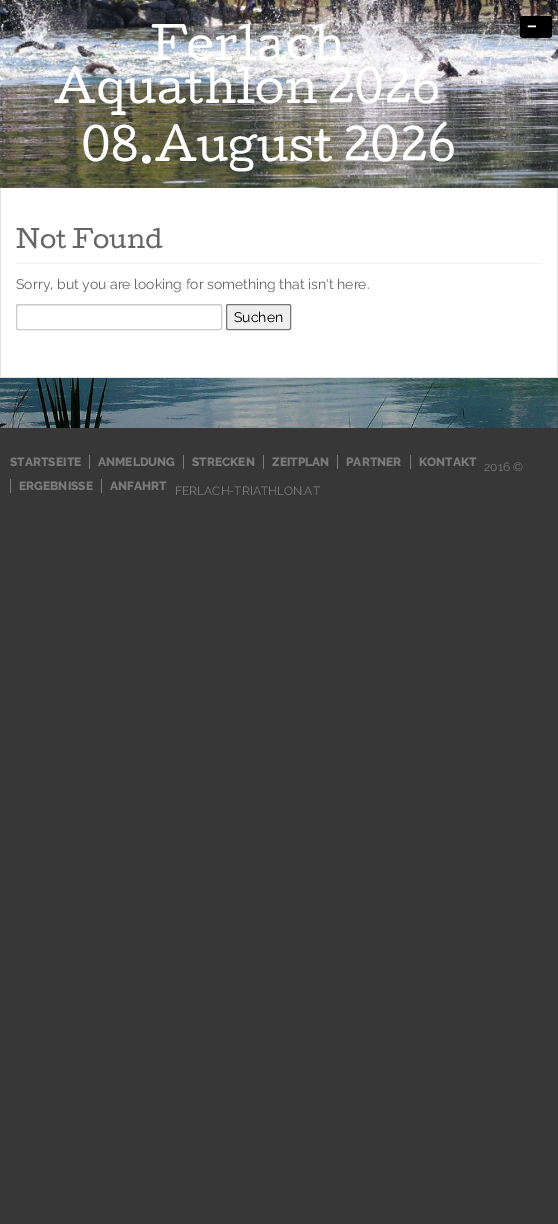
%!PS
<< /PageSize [558 1224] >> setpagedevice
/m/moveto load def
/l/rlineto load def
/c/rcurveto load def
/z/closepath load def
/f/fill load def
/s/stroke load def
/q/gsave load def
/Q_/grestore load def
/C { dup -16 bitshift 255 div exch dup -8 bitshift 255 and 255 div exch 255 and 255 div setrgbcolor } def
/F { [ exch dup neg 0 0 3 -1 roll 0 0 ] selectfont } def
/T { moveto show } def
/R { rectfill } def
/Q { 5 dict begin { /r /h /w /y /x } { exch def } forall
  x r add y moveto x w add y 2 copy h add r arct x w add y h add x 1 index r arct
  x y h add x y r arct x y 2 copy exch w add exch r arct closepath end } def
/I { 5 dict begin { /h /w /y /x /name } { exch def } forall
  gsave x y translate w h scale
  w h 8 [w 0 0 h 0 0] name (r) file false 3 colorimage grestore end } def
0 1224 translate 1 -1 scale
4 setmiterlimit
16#373737 C
0 0 558 1224 R
(1.rgb) 0 378 558 50 I
(2.rgb) 0 0 558 188 I
/Cutive-Regular 43 F
16#FFFFFF C
(Ferlach) 149 60 T
q
10 15 504 100 rectclip
(Aquathlon 2026) 54 103 T
Q_
(08.August 2026) 81 161 T
16#000000 C
520 16 32 22 3 Q f
/Raleway-Regular 28 F
16#FFFFFF C
(-) 526 34 T
1 188 556 189 R
16#E2E2E2 C
557 188 1 190 R
0 377 558 1 R
0 188 1 190 R
16#F2F2F2 C
16 263 526 1 R
/Cutive-Regular 24 F
16#666666 C
(Not Found) 16 248 T
/Raleway-Regular 14 F
(Sorry, but you are looking for something that isn't here.) 16 289 T
16#ECECEC C
18 306 m 202 0 l 1 1 l 0 -1 l 0 -1 0 -1 -1 -1 c -202 0 l -1 0 -1 0 -1 1 c 0 2 l z 221 327 m 0 2 l z eofill
16#CCCCCC C
16.5 304.5 205 25 1.5 Q s
16#EFEFEF C
226.5 304.5 64 25 1.5 Q q f Q_
16#767676 C
s
16#000000 C
(Suchen) 234 322 T
/Raleway-ExtraBold 12 F
16#7B7B7B C
(STARTSEITE) 10 466 T
(ANMELDUNG) 98 466 T
89 455 1 14 R
(STRECKEN) 192 466 T
183 455 1 14 R
(ZEITPLAN) 272 466 T
263 455 1 14 R
(PARTNER) 346 466 T
337 455 1 14 R
(KONTAKT) 419 466 T
410 455 1 14 R
(ERGEBNISSE) 19 490 T
10 479 1 14 R
(ANFAHRT) 110 490 T
101 479 1 14 R
/Raleway-Regular 12 F
(2016 ©) 484 471 T
(FERLACH-TRIATHLON.AT) 175 495 T
showpage
